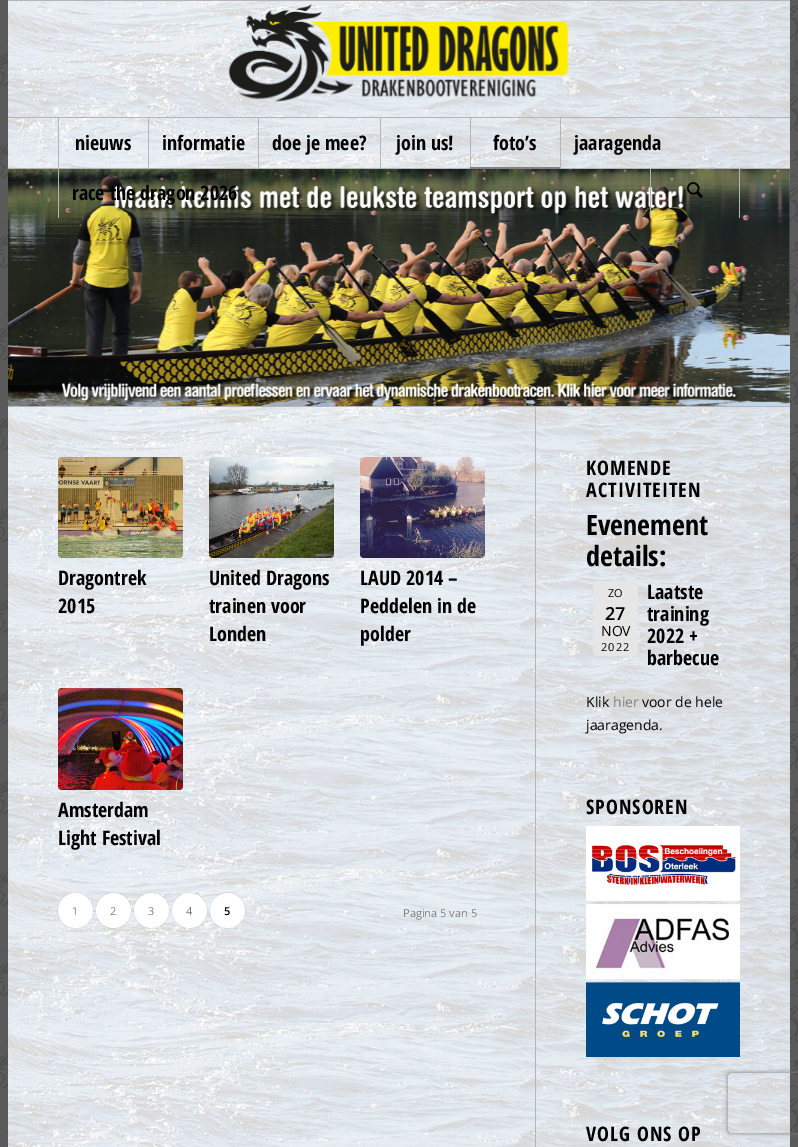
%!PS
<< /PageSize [798 1147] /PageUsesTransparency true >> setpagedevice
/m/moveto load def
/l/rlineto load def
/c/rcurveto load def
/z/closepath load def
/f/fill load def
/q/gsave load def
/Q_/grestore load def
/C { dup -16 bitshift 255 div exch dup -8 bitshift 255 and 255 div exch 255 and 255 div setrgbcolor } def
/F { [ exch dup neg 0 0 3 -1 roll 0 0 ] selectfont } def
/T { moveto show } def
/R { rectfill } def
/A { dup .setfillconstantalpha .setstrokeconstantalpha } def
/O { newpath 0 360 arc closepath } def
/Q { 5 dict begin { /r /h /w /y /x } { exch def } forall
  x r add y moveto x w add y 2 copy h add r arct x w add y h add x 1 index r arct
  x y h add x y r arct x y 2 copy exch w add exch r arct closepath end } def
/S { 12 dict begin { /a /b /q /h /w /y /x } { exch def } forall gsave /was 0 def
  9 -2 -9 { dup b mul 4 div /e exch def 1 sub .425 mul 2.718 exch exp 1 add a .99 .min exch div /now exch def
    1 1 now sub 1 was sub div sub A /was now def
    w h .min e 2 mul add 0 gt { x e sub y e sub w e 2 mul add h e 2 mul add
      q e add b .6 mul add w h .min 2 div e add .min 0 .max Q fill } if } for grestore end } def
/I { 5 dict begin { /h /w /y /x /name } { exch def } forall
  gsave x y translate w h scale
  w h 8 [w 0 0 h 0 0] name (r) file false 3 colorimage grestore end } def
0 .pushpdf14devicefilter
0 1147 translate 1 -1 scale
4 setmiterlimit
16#FFFFFF C
0 0 798 1147 R
(1.rgb) 0 0 798 1147 I
(2.rgb) 8 1 782 167 I
16#B5B5B5 C
8 0 782 1 R
8 168 782 1 R
(3.rgb) 228 3 341 99 I
8 117 782 1 R
(5.rgb) 789 169 1 237 I
(6.rgb) 8 169 782 237 I
58 118 1 100 R
/OpenSansCondensed-Bold 20 F
16#000000 C
(nieuws) 75 150 T
16#B5B5B5 C
148 118 1 50 R
16#000000 C
(informatie) 162 150 T
16#B5B5B5 C
258 118 1 50 R
16#000000 C
(doe je mee?) 272 150 T
16#B5B5B5 C
380 118 1 50 R
16#000000 C
(join us!) 396 150 T
16#B5B5B5 C
470 118 1 50 R
16#000000 C
(foto’s) 493 150 T
16#828282 C
470 167 90 2 R
16#B5B5B5 C
560 118 1 50 R
16#000000 C
(jaaragenda) 574 150 T
(race the dragon 2026) 72 200 T
16#B5B5B5 C
739 168 1 50 R
650 168 1 50 R
(4.rgb) 687 182 16 16 I
(7.rgb) 8 407 782 740 I
8 406 782 1 R
16#FFFFFF C
58 457 125 101 3 Q f
(8.rgb) 58 457 125 101 I
16#000000 C
(Dragontrek) 58 585 T
(2015) 58 613 T
16#FFFFFF C
209 457 125 101 3 Q f
(9.rgb) 209 457 125 101 I
16#000000 C
(United Dragons) 209 585 T
(trainen voor) 209 613 T
(Londen) 209 641 T
16#FFFFFF C
360 457 125 101 3 Q f
(10.rgb) 360 457 125 101 I
16#000000 C
(LAUD 2014 –) 360 585 T
(Peddelen in de) 360 613 T
(polder) 360 641 T
16#FFFFFF C
58 688 125 102 3 Q f
(11.rgb) 58 688 125 102 I
16#000000 C
(Amsterdam) 58 817 T
(Light Festival) 58 845 T
58 893 35 35 17.5 .5 .2 S
16#FFFFFF C
75.5 910.5 17.5 O f
/OpenSans-Regular 11 F
16#7E7E7E C
(1) 72 915 T
16#000000 C
96 893 35 35 17.5 .5 .2 S
16#FFFFFF C
113.5 910.5 17.5 O f
16#7E7E7E C
(2) 110 915 T
16#000000 C
134 893 35 35 17.5 .5 .2 S
16#FFFFFF C
151.5 910.5 17.5 O f
16#7E7E7E C
(3) 148 915 T
16#000000 C
172 893 35 35 17.5 .5 .2 S
16#FFFFFF C
189.5 910.5 17.5 O f
16#7E7E7E C
(4) 186 915 T
16#000000 C
210 893 35 35 17.5 .5 .2 S
16#FFFFFF C
227.5 910.5 17.5 O f
/OpenSans-SemiBold 11 F
16#000000 C
(5) 224 915 T
/OpenSans-Regular 11 F
16#7E7E7E C
(Pagina 5 van 5) 403 917 T
16#B5B5B5 C
535 407 1 740 R
/OpenSansCondensed-Bold 20 F
16#000000 C
586 475 m 1 0 (KOMENDE) ashow
586 497 m 1 0 (ACTIVITEITEN) ashow
/OpenSansCondensed-Bold 28 F
(Evenement) 586 535 T
(details:) 586 566 T
16#E6E6E6 C
593 581 45 75 5 Q f
/OpenSans-Regular 11 F
16#000000 C
(ZO) 608 597 T
/OpenSans-SemiBold 18 F
(27) 605 620 T
/OpenSans-Regular 14 F
(NOV) 601 636 T
/OpenSans-Regular 11 F
601 651 m 1 0 (2022) ashow
/OpenSansCondensed-Bold 20 F
(Laatste) 647 599 T
(training) 647 621 T
(2022 +) 647 643 T
(barbecue) 647 665 T
/OpenSans-Regular 14 F
(Klik) 586 707 T
16#7E7E7E C
(hier) 613 707 T
16#000000 C
(voor de hele) 642 707 T
(jaaragenda.) 586 730 T
/OpenSansCondensed-Bold 20 F
586 814 m 1 0 (SPONSOREN) ashow
(12.rgb) 586 826 154 231 I
586 1141 m 1 0 (VOLG ONS OP) ashow
q
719 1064 m 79 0 l 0 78 l -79 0 l z 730 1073 m 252 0 l 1 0 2 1 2 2 c 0 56 l 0 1 -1 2 -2 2 c -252 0 l -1 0 -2 -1 -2 -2 c 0 -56 l 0 -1 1 -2 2 -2 c z eoclip newpath
16#808080 C
728 1073 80 60 2 2.5 1 S
Q_
.poppdf14devicefilter showpage
